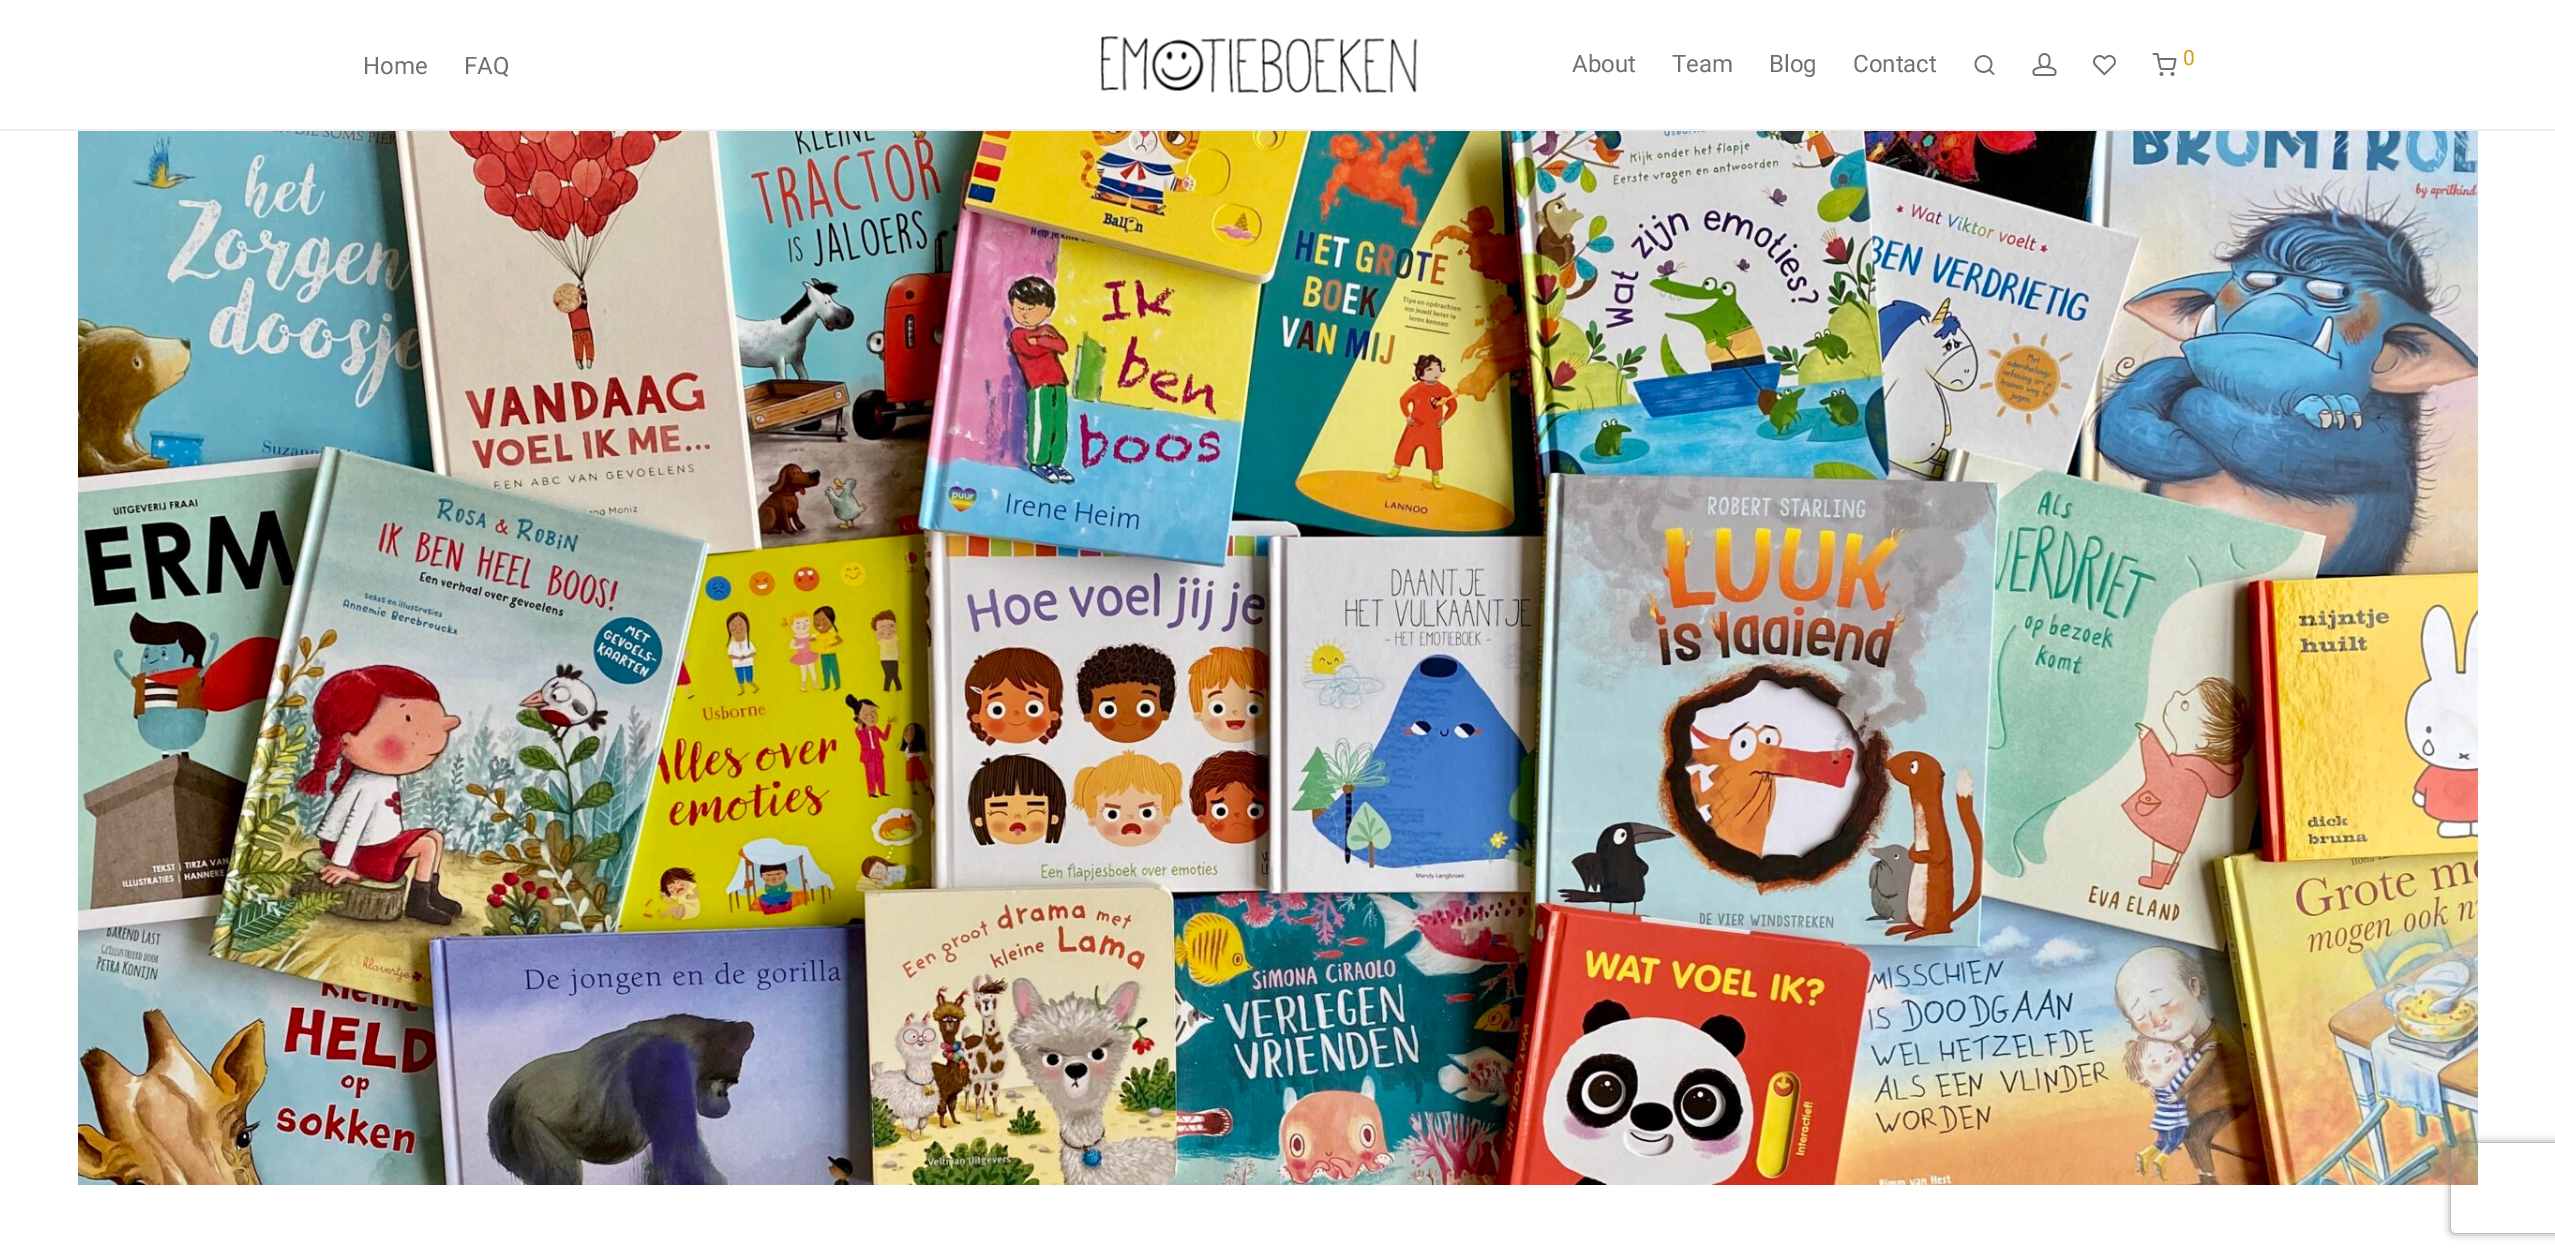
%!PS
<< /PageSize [2555 1254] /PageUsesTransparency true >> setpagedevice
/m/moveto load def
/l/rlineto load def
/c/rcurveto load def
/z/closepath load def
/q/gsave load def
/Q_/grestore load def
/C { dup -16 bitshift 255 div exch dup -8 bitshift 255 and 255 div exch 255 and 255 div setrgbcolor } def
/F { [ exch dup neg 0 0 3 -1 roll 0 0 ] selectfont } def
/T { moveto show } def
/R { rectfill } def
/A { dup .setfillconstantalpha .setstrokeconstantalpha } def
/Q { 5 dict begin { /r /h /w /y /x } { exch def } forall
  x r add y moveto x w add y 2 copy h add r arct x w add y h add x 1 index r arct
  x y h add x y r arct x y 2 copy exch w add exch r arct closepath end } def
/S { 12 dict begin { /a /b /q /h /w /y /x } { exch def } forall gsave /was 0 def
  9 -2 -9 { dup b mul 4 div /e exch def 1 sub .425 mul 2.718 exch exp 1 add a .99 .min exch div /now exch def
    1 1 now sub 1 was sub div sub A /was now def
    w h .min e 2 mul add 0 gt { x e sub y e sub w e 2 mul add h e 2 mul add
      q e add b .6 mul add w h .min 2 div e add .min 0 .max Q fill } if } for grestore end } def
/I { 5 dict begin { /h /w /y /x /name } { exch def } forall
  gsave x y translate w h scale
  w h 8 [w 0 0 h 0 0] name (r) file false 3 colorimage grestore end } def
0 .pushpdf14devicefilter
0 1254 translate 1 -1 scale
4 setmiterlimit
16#FFFFFF C
0 0 2555 1254 R
16#EEEEEE C
0 129 2555 2 R
/Roboto-Regular 24 F
16#707070 C
(Home) 363 74 T
(FAQ) 464 74 T
(1.rgb) 1100 36 318 57 I
(About) 1572 72 T
(Team) 1672 72 T
(Blog) 1769 72 T
(Contact) 1853 72 T
(2.rgb) 1974 55 21 20 I
(3.rgb) 2032 53 25 23 I
(4.rgb) 2093 55 23 21 I
(5.rgb) 2152 53 25 23 I
/Roboto-Regular 21 F
16#DC9814 C
(0) 2183 65 T
(6.rgb) 78 131 2400 1054 I
q
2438 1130 m 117 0 l 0 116 l -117 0 l z 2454 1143 m 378 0 l 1.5 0 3 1.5 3 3 c 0 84 l 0 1.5 -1.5 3 -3 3 c -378 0 l -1.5 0 -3 -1.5 -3 -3 c 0 -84 l 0 -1.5 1.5 -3 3 -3 c z eoclip newpath
16#808080 C
2451 1143 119 90 3 4 1 S
Q_
.poppdf14devicefilter showpage
